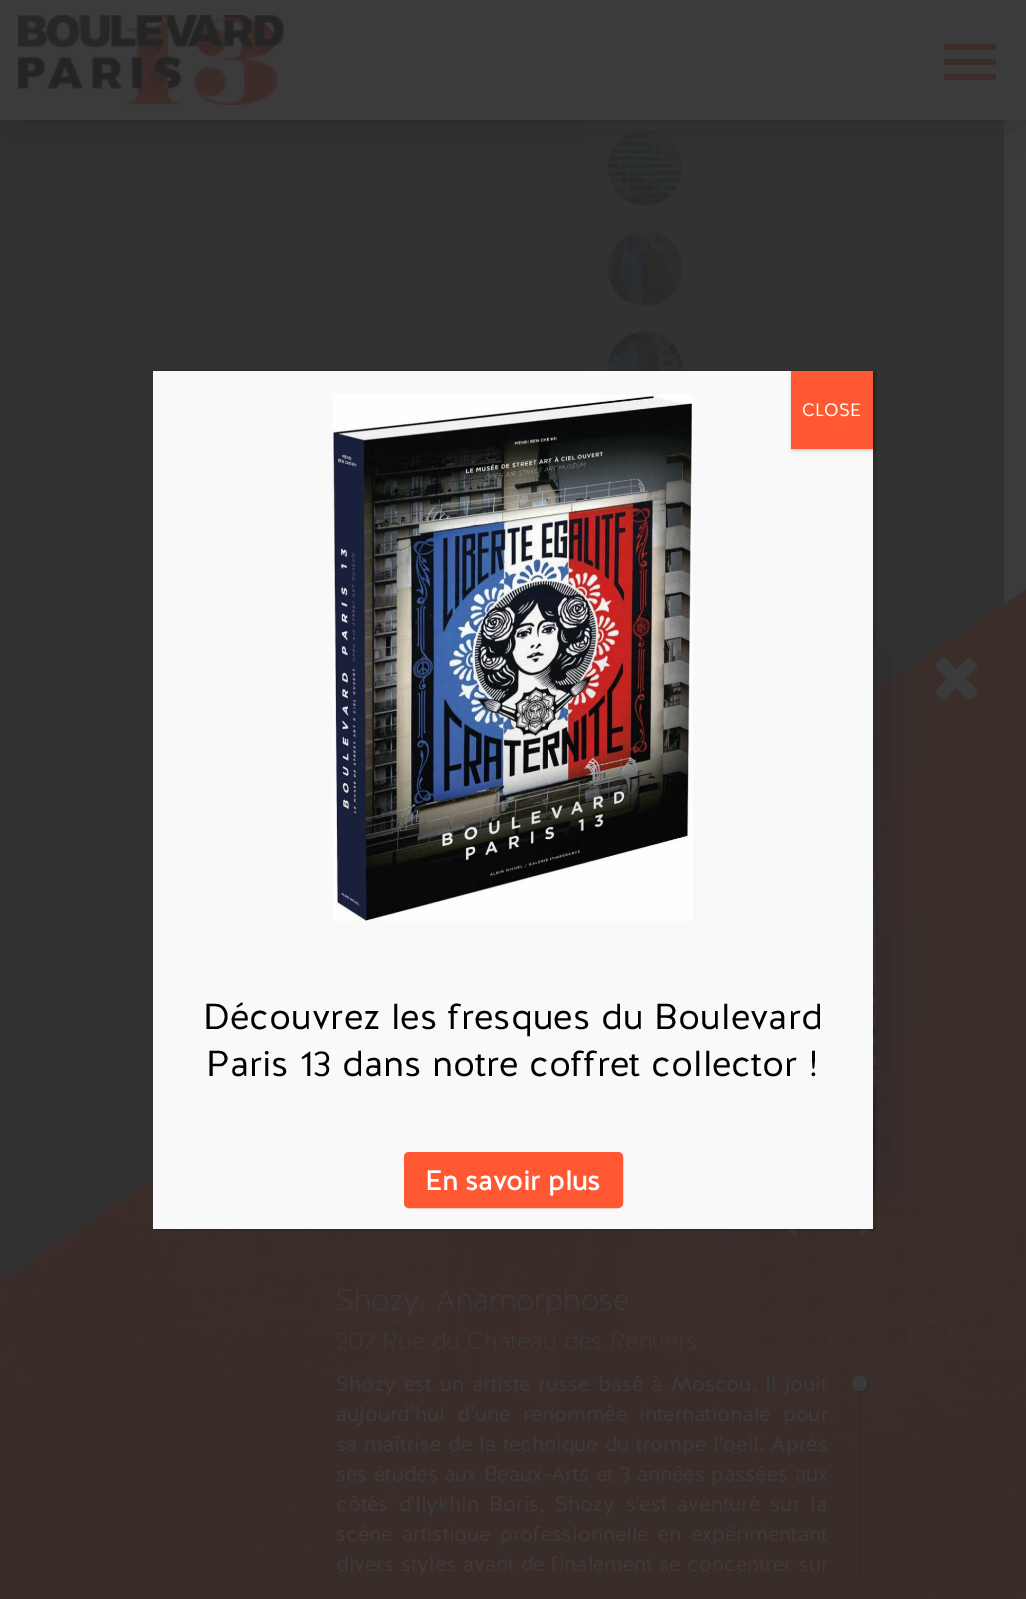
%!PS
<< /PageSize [1026 1599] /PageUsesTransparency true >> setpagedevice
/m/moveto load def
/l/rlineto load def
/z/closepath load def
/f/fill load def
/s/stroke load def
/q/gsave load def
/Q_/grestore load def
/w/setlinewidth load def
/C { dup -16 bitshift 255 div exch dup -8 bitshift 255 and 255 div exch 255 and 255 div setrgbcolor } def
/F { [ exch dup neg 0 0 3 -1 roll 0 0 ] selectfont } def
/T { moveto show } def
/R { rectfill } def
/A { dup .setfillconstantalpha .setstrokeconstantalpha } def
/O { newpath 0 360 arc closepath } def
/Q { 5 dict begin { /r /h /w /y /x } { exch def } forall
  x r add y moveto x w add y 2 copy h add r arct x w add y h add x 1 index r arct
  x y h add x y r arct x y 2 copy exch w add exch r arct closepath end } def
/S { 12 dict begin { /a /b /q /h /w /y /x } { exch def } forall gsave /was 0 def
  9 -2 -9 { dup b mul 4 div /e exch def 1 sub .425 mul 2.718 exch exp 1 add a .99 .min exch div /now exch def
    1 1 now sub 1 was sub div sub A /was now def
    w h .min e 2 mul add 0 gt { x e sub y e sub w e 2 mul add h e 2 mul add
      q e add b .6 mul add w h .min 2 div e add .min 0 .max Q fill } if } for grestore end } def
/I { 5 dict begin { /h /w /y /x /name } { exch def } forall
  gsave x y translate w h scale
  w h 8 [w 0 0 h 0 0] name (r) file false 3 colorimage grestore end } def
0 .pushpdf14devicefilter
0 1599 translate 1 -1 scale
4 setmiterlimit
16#3B3B3B C
0 0 1026 1599 R
16#313131 C
0 120 584 1470 R
q
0 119 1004 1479 rectclip
16#272727 C
602 137 384 1443 0 15 1 S
Q_
16#323232 C
584 120 420 573 R
(5.rgb) 607 331 76 40 I
(6.rgb) 0 590 1026 1009 I
0.9 A
16#3B2D29 C
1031 586 m -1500 1013 l 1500 0 l 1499 -1013 l z f
1 A
(9.rgb) 787 1229 11 8 I
(10.rgb) 858 1217 18 20 I
16#242424 C
342 653 528 528 0 30 .75 S
(8.rgb) 873 646 3 541 I
16#020202 C
155 372 720 858 0 2 .23 S
16#F9F9F9 C
153 371 720 858 R
16#020202 C
792 372 83 78 0 2 .23 S
16#FF5833 C
791 371 82 78 R
/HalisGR-Regular 18 F
16#FFFFFF C
(CLOSE) 802 416 T
(1.rgb) 333 394 360 527 I
/HalisGR-Regular 36 F
16#000000 C
(Découvrez les fresques du Boulevard) 203 1029 T
(Paris 13 dans notre coffret collector !) 206 1076 T
16#FF5833 C
405.5 1153.5 216 53 3.5 Q q f Q_
3 w
s
/HalisGR-Bold 27 F
16#FFFFFF C
(En savoir plus) 425 1190 T
(3.rgb) 607 130 76 76 I
16#242424 C
18 24 990 84 0 22.5 1 S
16#3B3B3B C
0 0 1026 120 R
(2.rgb) 18 15 266 90 I
16#3B2C29 C
944 59 52 6 R
944 44 52 6 R
944 74 52 6 R
(4.rgb) 607 231 76 75 I
(7.rgb) 935 657 43 43 I
/HalisGR-ExtraLight 30 F
16#3B3B3B C
(Shozy, Anamorphose) 336 1310 T
/HalisGR-ExtraLight 24 F
(202 Rue du Château des Rentiers) 336 1349 T
/HalisGR-Regular 21 F
336 1391 m 1.75 0 32 (Shozy est un artiste russe basé à Moscou. Il jouit) widthshow
336 1421 m 6 0 32 (aujourd’hui d’une renommée internationale pour) widthshow
336 1451 m .5 0 32 (sa maîtrise de la technique du trompe l’oeil. Après) widthshow
(ses études aux Beaux-Arts et 3 années passées aux) 336 1481 T
336 1511 m 4 0 32 (côtés d'Ilykhin Boris, Shozy s'est aventuré sur la) widthshow
336 1541 m 3 0 32 (scène artistique professionnelle en expérimentant) widthshow
336 1571 m .25 0 32 (divers styles avant de finalement se concentrer sur) widthshow
0.3 A
16#242424 C
858 1376 3 201 R
q
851 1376 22 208 rectclip
1 A
854 1377 15 15 7.5 2 .5 S
Q_
1 A
16#3B3B3B C
859.5 1383.5 7.5 O f
.poppdf14devicefilter showpage
